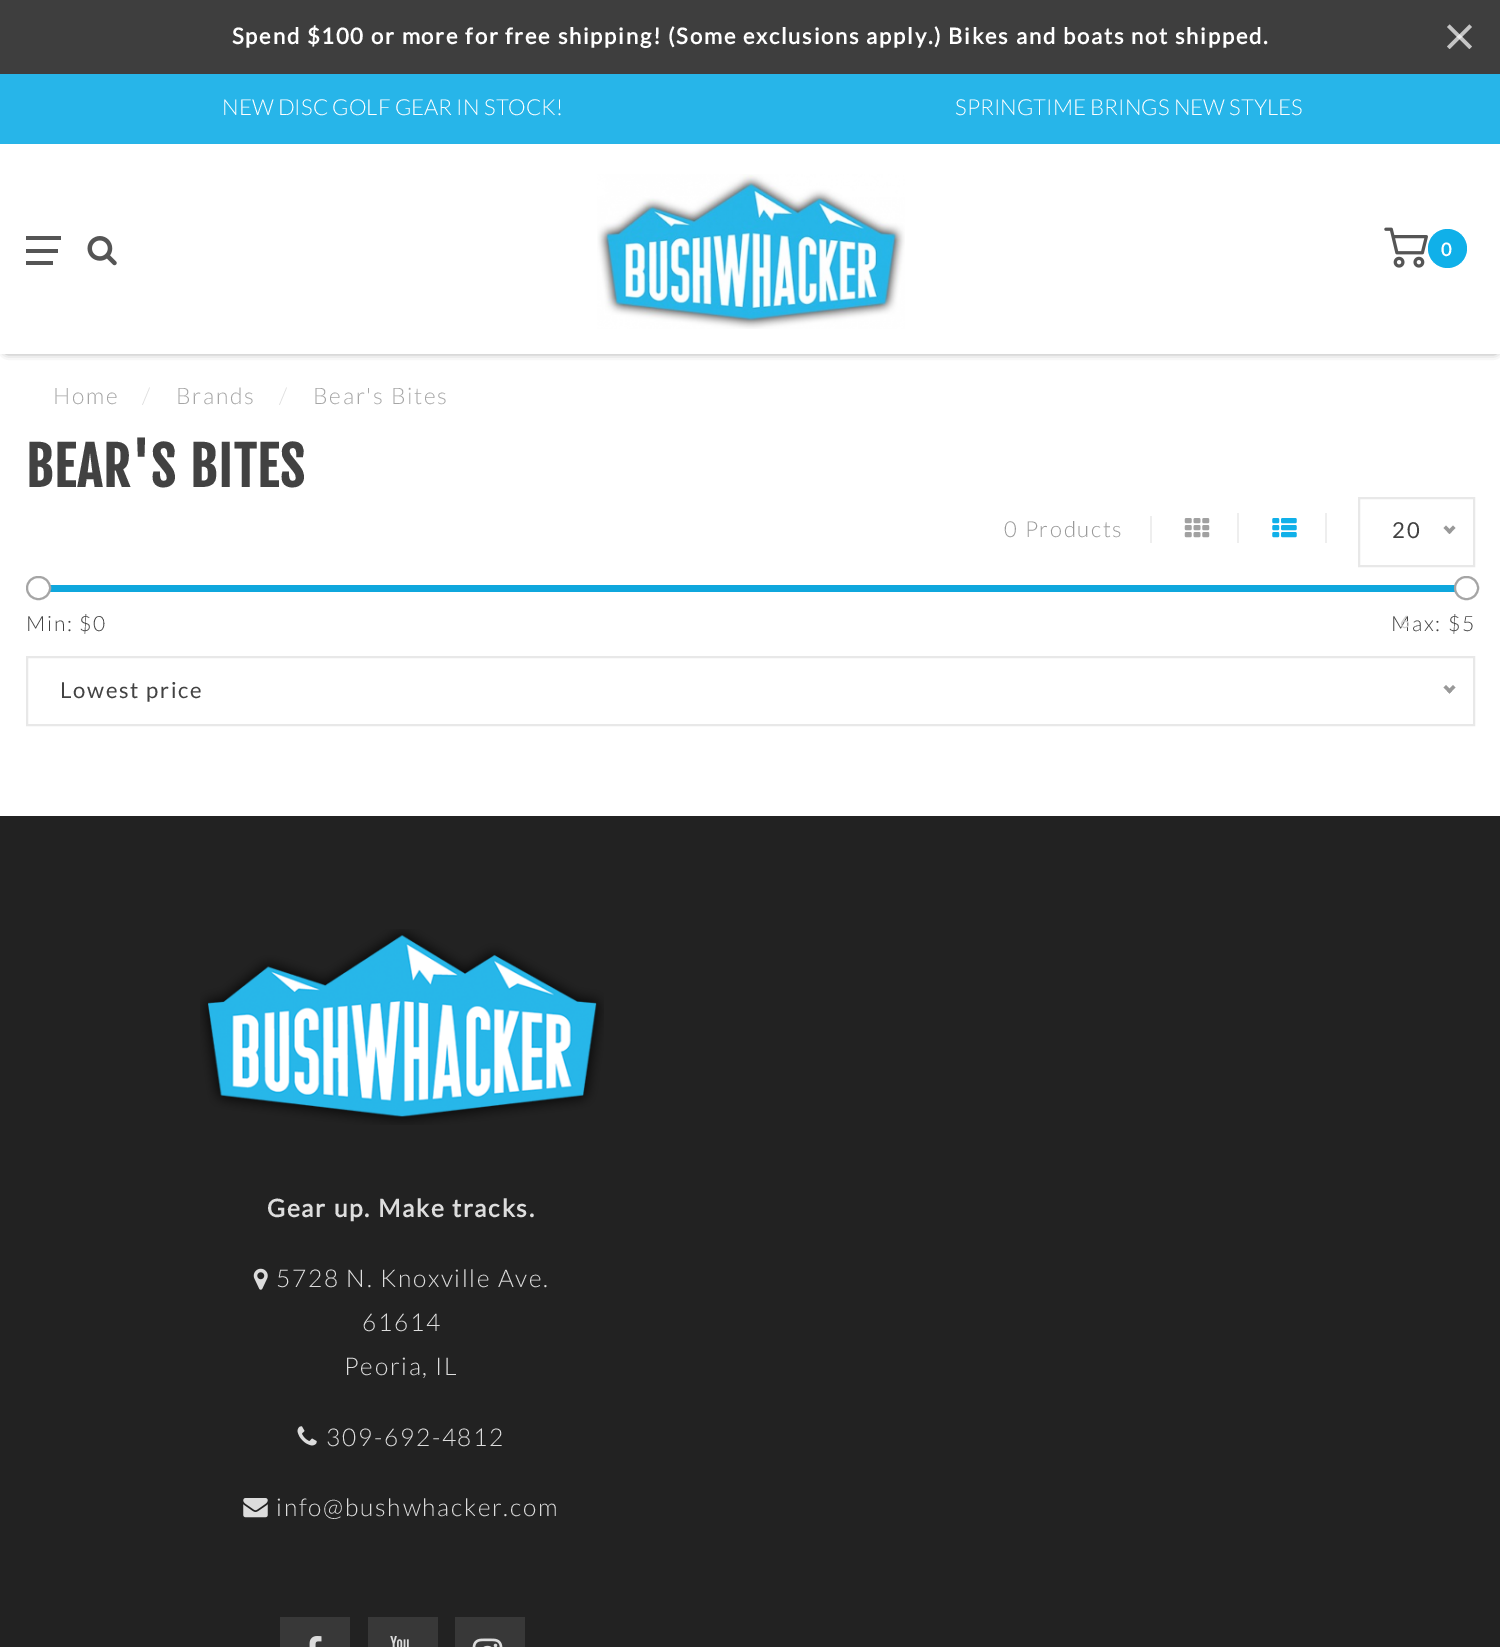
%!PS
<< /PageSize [1500 1647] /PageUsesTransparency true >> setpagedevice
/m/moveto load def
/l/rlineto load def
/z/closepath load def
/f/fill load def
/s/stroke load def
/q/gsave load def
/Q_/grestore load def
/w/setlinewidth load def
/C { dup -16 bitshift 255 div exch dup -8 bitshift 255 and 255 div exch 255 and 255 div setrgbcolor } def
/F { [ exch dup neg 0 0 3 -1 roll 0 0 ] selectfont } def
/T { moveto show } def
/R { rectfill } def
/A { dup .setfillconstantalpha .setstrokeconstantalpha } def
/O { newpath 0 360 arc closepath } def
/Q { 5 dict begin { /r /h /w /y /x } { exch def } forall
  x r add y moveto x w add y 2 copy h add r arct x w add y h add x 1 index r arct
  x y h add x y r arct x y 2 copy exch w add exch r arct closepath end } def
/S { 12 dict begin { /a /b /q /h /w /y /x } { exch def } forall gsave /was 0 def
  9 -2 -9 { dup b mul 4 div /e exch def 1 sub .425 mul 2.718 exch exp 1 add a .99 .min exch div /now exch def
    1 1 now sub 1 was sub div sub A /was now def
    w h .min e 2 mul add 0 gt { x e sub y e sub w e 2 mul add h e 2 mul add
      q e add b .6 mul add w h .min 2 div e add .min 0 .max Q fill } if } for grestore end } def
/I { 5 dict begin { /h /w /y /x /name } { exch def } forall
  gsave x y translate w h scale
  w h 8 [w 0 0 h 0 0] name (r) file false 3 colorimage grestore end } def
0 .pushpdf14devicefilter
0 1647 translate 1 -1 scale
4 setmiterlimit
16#FFFFFF C
0 0 1500 1647 R
16#3E3E3E C
0 0 1500 74 R
/Lato-Bold 22.05 F
16#FFFFFF C
232 44 m 1.75 0 (Spend $100 or more for free shipping! \(Some exclusions apply.\) Bikes and boats not shipped.) ashow
16#C5C5C5 C
1449.5 24.5 m 22.5 22 l -2.5 2.5 l -22.5 -22 l z f
0.7 A
16#FFFFFF C
1447 46.5 m 22.5 -22 l 2.5 2.5 l -22.5 22 l z f
1 A
16#27B5E9 C
0 74 1500 70 R
/Lato-Light 22.05 F
16#FFFFFF C
(NEW DISC GOLF GEAR IN STOCK!) 222 115 T
(SPRINGTIME BRINGS NEW STYLES) 955 115 T
16#000000 C
7 154 1488 196 0 4.5 1 S
16#FFFFFF C
0 144 1500 210 R
16#555555 C
26 236 35 4 R
26 249 32 4 R
26 261 27 4 R
(1.rgb) 87 236 30 30 I
(2.rgb) 597 174 308 155 I
(3.rgb) 1384 227 44 41 I
16#10B0E9 C
1447.5 248.5 19.5 O f
/Lato-Bold 18 F
16#FFFFFF C
1441 256 m 1.75 0 (0) ashow
/Lato-Light 22.75 F
16#A5A5A5 C
53 404 m 1.75 0 (Home) ashow
16#DDDDDD C
142 404 m 1.75 0 (/) ashow
16#A5A5A5 C
176 404 m 1.75 0 (Brands) ashow
16#DDDDDD C
279 404 m 1.75 0 (/) ashow
16#A5A5A5 C
313 404 m 1.75 0 (Bear's Bites) ashow
/FjallaOne-Bold 52.5 F
16#424242 C
26 487 m 1.75 0 (BEAR'S BITES) ashow
/Lato-Light 22.05 F
16#999999 C
1004 537 m 1.75 0 (0 Products) ashow
16#EEEEEE C
1150 516 2 27 R
1237 513 2 30 R
(4.rgb) 1184 518 26 20 I
1325 513 2 30 R
(5.rgb) 1272 518 25 20 I
16#E8E8E8 C
2 w
1359 498 115 68 rectstroke
/Lato-Regular 22.05 F
16#424242 C
1392 538 m 1.75 0 (20) ashow
16#999999 C
1453 525.5 m 2.5 2.5 l -6 6 l -2.5 -2.5 l z f
1446 525.5 m 6 6 l -2.5 2.5 l -6 -6 l z f
/Lato-Light 21 F
16#424242 C
1391 631 m 1.75 0 (Max: $5) ashow
/Lato-Regular 17 F
16#D0D0D0 C
1400 628 m 1 0 (6) ashow
16#F5F5F5 C
26 585 1 7 R
16#0FA7DD C
44 585 1411 7 R
16#FFFFFF C
27 577 23 22 11 Q q f Q_
16#A5A5A5 C
s
16#FFFFFF C
1455 577 23 22 11 Q q f Q_
16#A5A5A5 C
s
/Lato-Light 21 F
16#424242 C
26 631 m 1.75 0 (Min: $0) ashow
16#E8E8E8 C
27 657 1447 68 rectstroke
/Lato-Regular 22.05 F
16#424242 C
60 698 m 1.75 0 (Lowest price) ashow
16#999999 C
1453 685 m 2.5 2.5 l -6 6 l -2.5 -2.5 l z f
1446 685 m 6 6 l -2.5 2.5 l -6 -6 l z f
16#222222 C
0 816 1500 831 R
(6.rgb) 200 929 404 196 I
/Lato-Bold 24.5 F
16#DDDDDD C
267 1217 m 1.75 0 (Gear up. Make tracks.) ashow
(7.rgb) 253 1268 15 22 I
/Lato-Light 24.5 F
276 1287 m 1.75 0 (5728 N. Knoxville Ave.) ashow
362 1331 m 1.75 0 (61614) ashow
344 1375 m 1.75 0 (Peoria, IL) ashow
(8.rgb) 297 1426 20 20 I
326 1446 m 1.75 0 (309-692-4812) ashow
(9.rgb) 243 1498 25 20 I
276 1516 m 1.75 0 (info@bushwhacker.com) ashow
16#383838 C
280 1617 70 30 R
(10.rgb) 309 1636 13 11 I
368 1617 70 30 R
(11.rgb) 390 1636 19 11 I
455 1617 70 30 R
(12.rgb) 472 1638 31 9 I
.poppdf14devicefilter showpage
